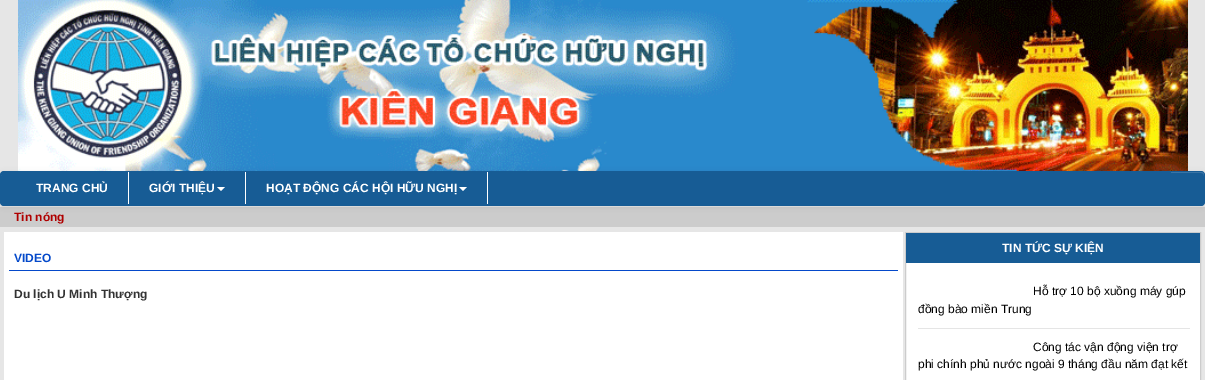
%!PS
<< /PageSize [1205 380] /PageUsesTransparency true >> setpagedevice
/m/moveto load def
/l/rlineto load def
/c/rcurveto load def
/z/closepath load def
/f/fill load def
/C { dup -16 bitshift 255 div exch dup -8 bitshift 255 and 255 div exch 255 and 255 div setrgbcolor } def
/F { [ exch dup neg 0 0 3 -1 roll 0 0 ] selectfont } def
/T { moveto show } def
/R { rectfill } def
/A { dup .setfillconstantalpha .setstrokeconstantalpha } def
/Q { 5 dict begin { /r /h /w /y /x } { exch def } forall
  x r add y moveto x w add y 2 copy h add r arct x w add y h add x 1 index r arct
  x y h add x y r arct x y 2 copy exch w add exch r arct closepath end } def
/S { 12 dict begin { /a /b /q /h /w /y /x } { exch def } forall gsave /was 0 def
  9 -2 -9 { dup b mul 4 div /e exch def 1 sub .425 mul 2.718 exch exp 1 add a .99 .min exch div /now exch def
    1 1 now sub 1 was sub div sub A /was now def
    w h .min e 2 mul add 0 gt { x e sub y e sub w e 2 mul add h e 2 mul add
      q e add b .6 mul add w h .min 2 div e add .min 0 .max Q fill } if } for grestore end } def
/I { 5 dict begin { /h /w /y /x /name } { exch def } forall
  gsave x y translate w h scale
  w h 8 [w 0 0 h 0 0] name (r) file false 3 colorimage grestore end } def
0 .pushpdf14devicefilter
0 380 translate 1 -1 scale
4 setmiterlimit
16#E6E6E6 C
0 0 1205 380 R
(1.rgb) 18 0 1170 171 I
16#CCCCCC C
0 207 1205 20 R
16#000000 C
0 172 1205 35 4 2.5 .07 S
16#175C95 C
0 171 1205 35 4 Q f
16#3A74A5 C
4 173 m 1197 0 l 2 0 3 1 3 3 c 0 -1 l 0 -2 -1 -3 -3 -3 c -1197 0 l -2 0 -3 1 -3 3 c 0 1 l 0 -2 1 -3 3 -3 c z f
16#175C95 C
1 172 1170 3 R
16#FFFFFF C
128 172 1 32 R
/LiberationSans-Bold 12 F
(TRANG CHỦ) 36 192 T
245 172 1 32 R
(GIỚI THIỆU) 149 192 T
217 187 m 8 0 l -4 4 l z f
487 172 1 32 R
(HOẠT ĐỘNG CÁC HỘI HỮU NGHỊ) 266 192 T
459 187 m 8 0 l -4 4 l z f
16#AF0000 C
(Tin nóng) 14 221 T
16#FFFFFF C
4 232 899 148 R
16#0449CA C
9 270 889 1 R
(VIDEO) 14 262 T
16#333333 C
(Du lịch U Minh Thượng) 14 298 T
16#FFFFFF C
906 263 294 117 R
16#CCCCCC C
905.5 232.5 295 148 rectstroke
16#175C95 C
906 233 294 30 R
16#FFFFFF C
(TIN TỨC SỰ KIỆN) 1002 252 T
16#E5E5E5 C
918 328 272 1 R
/LiberationSans-Regular 12 F
16#000000 C
(Hỗ trợ 10 bộ xuồng máy gúp) 1033 295 T
(đồng bào miền Trung) 918 313 T
(Công tác vận động viện trợ) 1033 351 T
(phi chính phủ nước ngoài 9 tháng đầu năm đạt kết) 918 368 T
.poppdf14devicefilter showpage
